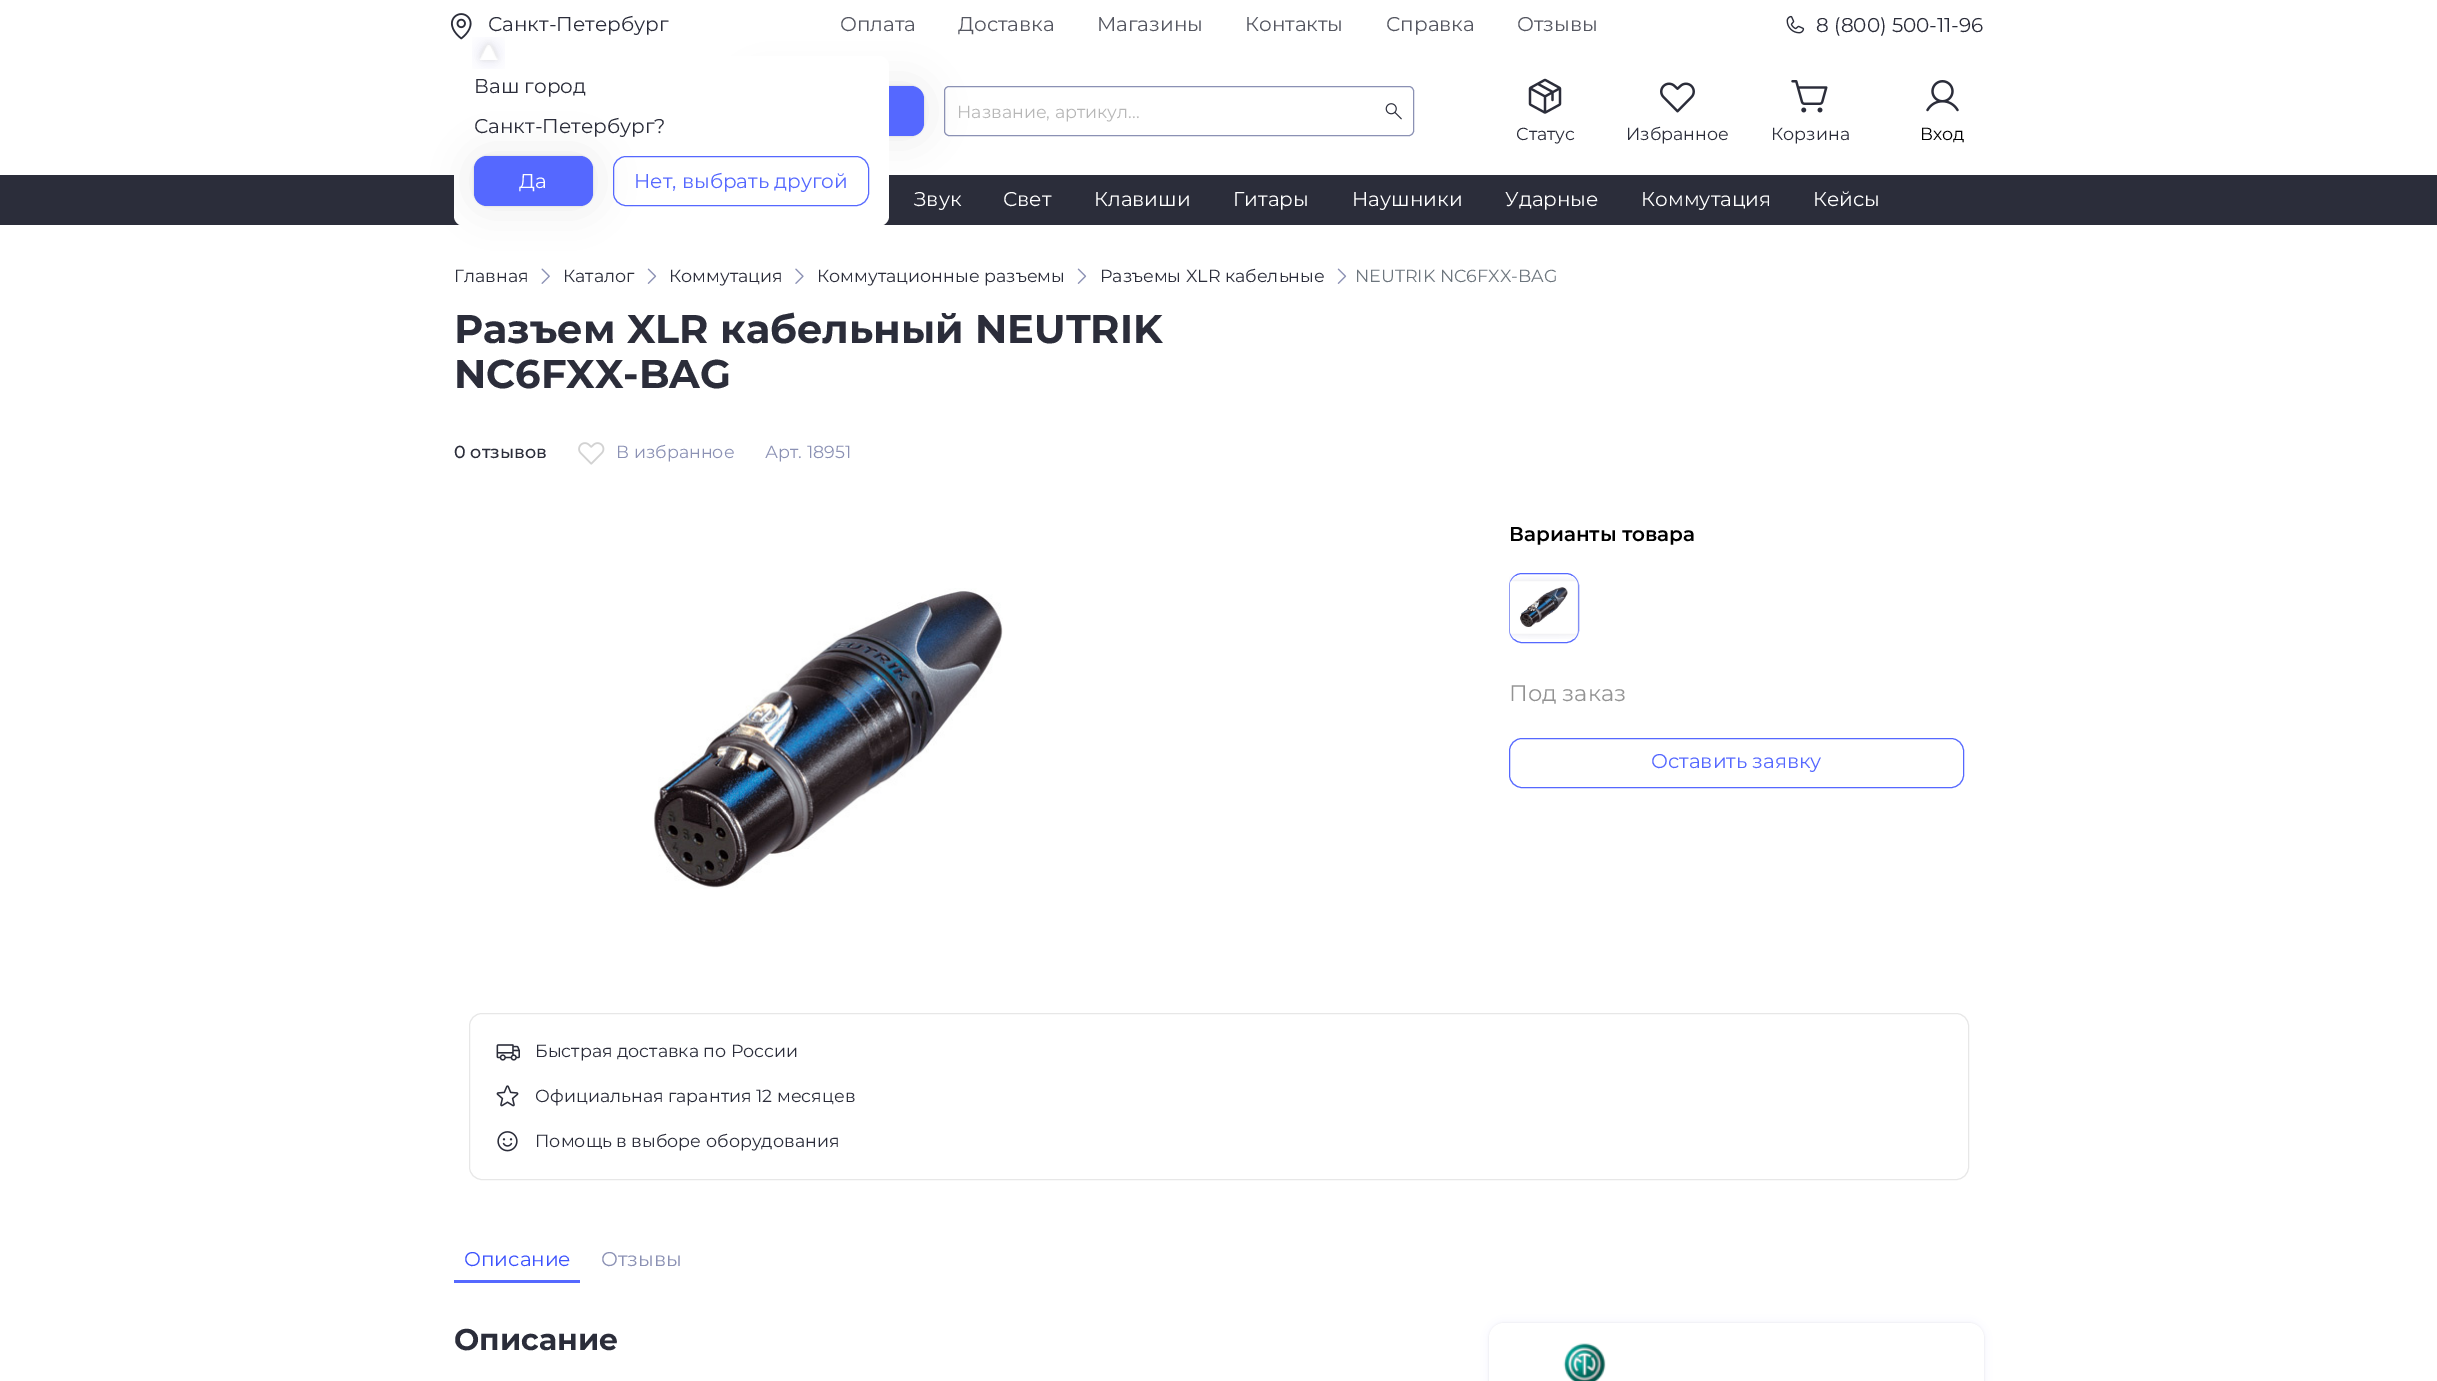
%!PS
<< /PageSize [2437 1381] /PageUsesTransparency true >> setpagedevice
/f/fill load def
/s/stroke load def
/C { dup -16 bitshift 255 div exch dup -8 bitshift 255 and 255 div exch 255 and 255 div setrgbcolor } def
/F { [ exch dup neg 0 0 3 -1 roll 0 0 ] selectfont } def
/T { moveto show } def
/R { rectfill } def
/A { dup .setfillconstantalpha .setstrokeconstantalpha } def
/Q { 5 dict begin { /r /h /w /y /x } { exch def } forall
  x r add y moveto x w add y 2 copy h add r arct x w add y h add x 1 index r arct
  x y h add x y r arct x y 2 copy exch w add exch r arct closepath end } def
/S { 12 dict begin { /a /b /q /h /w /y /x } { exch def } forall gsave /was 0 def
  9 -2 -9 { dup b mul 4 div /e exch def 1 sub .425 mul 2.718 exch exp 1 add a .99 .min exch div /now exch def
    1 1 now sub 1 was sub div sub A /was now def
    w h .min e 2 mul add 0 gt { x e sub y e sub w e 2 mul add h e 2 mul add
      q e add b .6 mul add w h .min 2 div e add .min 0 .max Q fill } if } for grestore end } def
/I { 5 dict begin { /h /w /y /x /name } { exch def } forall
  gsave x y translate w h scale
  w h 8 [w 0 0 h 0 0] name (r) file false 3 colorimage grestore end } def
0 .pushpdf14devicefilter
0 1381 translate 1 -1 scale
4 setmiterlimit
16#FFFFFF C
0 0 2437 1381 R
(1.rgb) 450 13 22 27 I
/Montserrat-Regular 20 F
16#2B2D3A C
(Санкт-Петербург) 488 31 T
0 175 2437 50 R
16#000000 C
749 86 175 50 13 20 .08 S
749 86 175 50 13 1 .12 S
16#5568FF C
749 86 175 50 13 Q f
16#FFFFFF C
454 56 435 170 10 Q f
(2.rgb) 472 37 33 32 I
16#2B2D3A C
(Ваш город) 474 93 T
(Санкт-Петербург?) 474 133 T
16#000000 C
474 156 119 50 13 20 .08 S
474 156 119 50 13 1 .12 S
16#5568FF C
474 156 119 50 13 Q f
16#FFFFFF C
(Да) 519 188 T
16#5568FF C
613.5 156.5 255 49 12.5 Q s
(Нет, выбрать другой) 634 188 T
16#555761 C
(Оплата) 840 31 T
(Доставка) 958 31 T
(Магазины) 1097 31 T
(Контакты) 1245 31 T
(Справка) 1386 31 T
(Отзывы) 1517 31 T
(3.rgb) 1786 15 19 19 I
16#2B2D3A C
(8 \(800\) 500-11-96) 1816 32 T
(4.rgb) 1385 103 17 17 I
16#8B91B4 C
944.5 86.5 469 49 4.5 Q s
/Montserrat-Regular 17.5 F
16#B7B7B7 C
(Название, артикул...) 957 118 T
(5.rgb) 1528 78 34 36 I
16#2B2D3A C
(Статус) 1516 140 T
(6.rgb) 1660 82 35 31 I
(Избранное) 1626 140 T
(7.rgb) 1791 80 37 33 I
(Корзина) 1771 140 T
(8.rgb) 1926 80 33 32 I
16#000000 C
(Вход) 1920 140 T
/Montserrat-Regular 20 F
16#FFFFFF C
(Звук) 914 206 T
(Свет) 1003 206 T
(Клавиши) 1094 206 T
(Гитары) 1233 206 T
(Наушники) 1352 206 T
(Ударные) 1505 206 T
(Коммутация) 1641 206 T
(Кейсы) 1813 206 T
/Montserrat-Regular 17.5 F
16#2B2D3A C
(Главная) 454 282 T
(9.rgb) 541 268 9 16 I
(Каталог) 563 282 T
(10.rgb) 647 268 10 16 I
(Коммутация) 669 282 T
(11.rgb) 795 268 9 16 I
(Коммутационные разъемы) 817 282 T
(10.rgb) 1077 268 10 16 I
(Разъемы XLR кабельные) 1100 282 T
(10.rgb) 1337 268 10 16 I
16#6C757D C
(NEUTRIK NC6FXX-BAG) 1355 282 T
/Montserrat-Bold 40 F
16#2B2D3A C
(Разъем XLR кабельный NEUTRIK) 454 343 T
(NC6FXX-BAG) 454 388 T
/Montserrat-Medium 17.5 F
(0 отзывов) 454 458 T
(12.rgb) 578 442 27 23 I
/Montserrat-Regular 17.5 F
16#8B91B4 C
(В избранное) 616 458 T
(Арт. 18951) 765 458 T
(13.rgb) 653 588 350 301 I
/Montserrat-SemiBold 20 F
16#000000 C
(Варианты товара) 1509 541 T
16#5568FF C
1509.5 573.5 69 69 12.5 Q s
(14.rgb) 1509 576 70 63 I
/Montserrat-Regular 22.5 F
16#939393 C
(Под заказ) 1509 701 T
16#5568FF C
1509.5 738.5 454 49 12.5 Q s
/Montserrat-Regular 20 F
(Оставить заявку) 1651 768 T
16#E7E7E7 C
469.5 1013.5 1499 166 12.5 Q s
(15.rgb) 496 1044 24 17 I
/Montserrat-Regular 17.5 F
16#2B2D3A C
(Быстрая доставка по России) 535 1057 T
(16.rgb) 496 1085 23 22 I
(Официальная гарантия 12 месяцев) 535 1102 T
(17.rgb) 497 1131 21 21 I
(Помощь в выборе оборудования) 535 1147 T
16#5568FF C
454 1280 126 3 R
/Montserrat-Regular 20 F
16#3C52FD C
(Описание) 464 1266 T
16#8B91B4 C
(Отзывы) 601 1266 T
/Montserrat-Bold 30 F
16#2B2D3A C
(Описание) 454 1350 T
16#1123C0 C
1489 1323 495 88 15 5 .05 S
16#E7E7E7 C
1489 1323 495 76 15 1 1 S
16#FFFFFF C
1489 1323 495 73 15 Q f
(18.rgb) 1563 1343 43 38 I
.poppdf14devicefilter showpage
